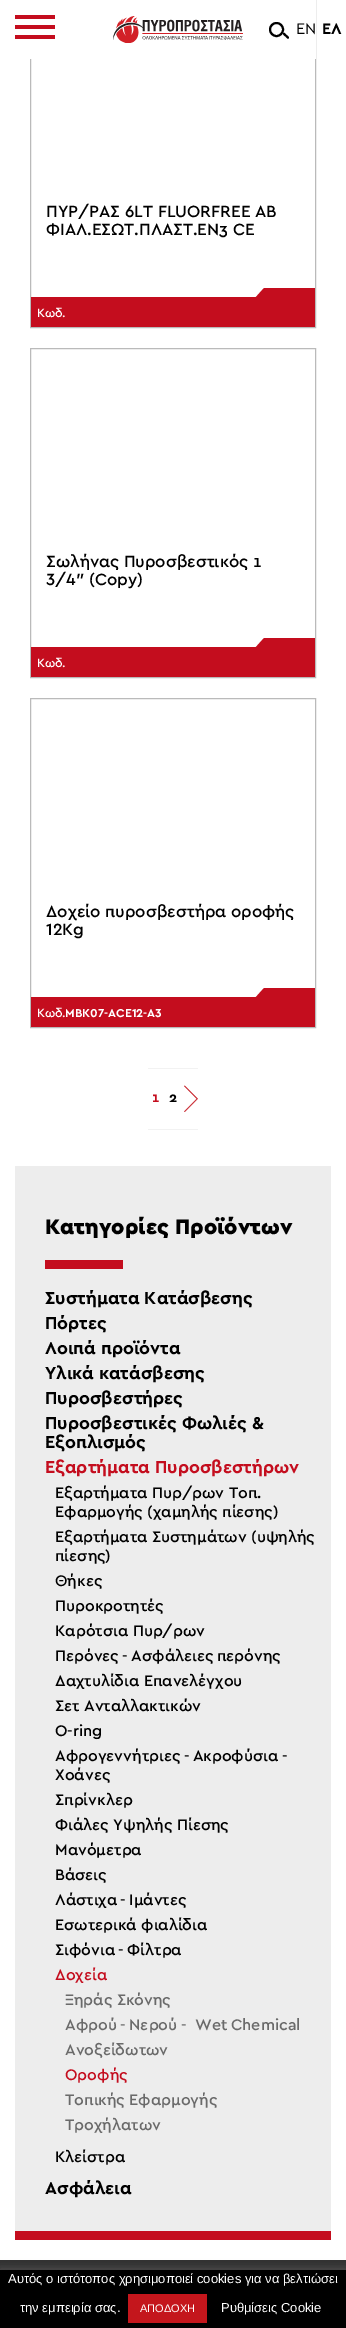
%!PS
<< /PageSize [346 2328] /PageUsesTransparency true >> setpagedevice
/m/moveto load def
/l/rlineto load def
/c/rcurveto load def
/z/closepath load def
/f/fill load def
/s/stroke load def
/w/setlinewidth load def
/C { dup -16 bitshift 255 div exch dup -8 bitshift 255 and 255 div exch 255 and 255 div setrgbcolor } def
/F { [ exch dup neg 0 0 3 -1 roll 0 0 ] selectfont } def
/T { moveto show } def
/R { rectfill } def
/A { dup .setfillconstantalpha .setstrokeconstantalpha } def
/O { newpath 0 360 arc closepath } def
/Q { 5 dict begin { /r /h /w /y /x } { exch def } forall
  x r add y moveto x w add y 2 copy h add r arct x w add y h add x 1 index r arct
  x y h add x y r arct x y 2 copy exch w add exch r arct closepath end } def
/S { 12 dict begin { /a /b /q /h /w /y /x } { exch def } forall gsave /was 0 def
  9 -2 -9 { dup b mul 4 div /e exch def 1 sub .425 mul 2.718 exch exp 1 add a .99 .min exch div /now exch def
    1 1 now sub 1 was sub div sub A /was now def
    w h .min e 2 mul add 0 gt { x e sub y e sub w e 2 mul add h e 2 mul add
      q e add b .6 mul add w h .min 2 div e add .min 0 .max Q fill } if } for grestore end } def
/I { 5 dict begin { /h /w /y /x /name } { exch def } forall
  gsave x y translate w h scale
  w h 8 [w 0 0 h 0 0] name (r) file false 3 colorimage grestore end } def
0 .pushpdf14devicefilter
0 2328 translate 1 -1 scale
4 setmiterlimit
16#FFFFFF C
0 0 346 2328 R
16#BABABA C
30.5 -.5 285 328 rectstroke
16#FFFFFF C
30 0 286 59 R
16#C40D1E C
15 25 40 4 R
15 15 40 4 R
15 35 40 4 R
(1.rgb) 113 16 130 27 I
16#000000 C
2 w
276.5 29.5 6.5 O s
283.5 33 m 1 -1 2.5 1.5 3 2 c 1 .5 3.5 2.5 2 3.5 c -1 1 -2.5 -1.5 -3 -2 c -1 -.5 -3.5 -2.5 -2 -3.5 c z f
/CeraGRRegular-Regular 16 F
(EN) 296 34 T
/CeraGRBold-Bold 16 F
(ΕΛ) 322 34 T
/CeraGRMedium-Medium 17 F
(ΠΥΡ/ΡΑΣ 6LT FLUORFREE ΑΒ) 46 217 T
(ΦΙΑΛ.ΕΣΩΤ.ΠΛΑΣΤ.EN3 CE) 46 235 T
16#C40D1E C
31 297 284 30 R
264 288 m -9 10 l 60 0 l 0 -10 l z f
/CeraGRRegular-Bold 12 F
16#FFFFFF C
(Κωδ.) 37 317 T
16#BABABA C
1 w
30.5 348.5 285 329 rectstroke
/CeraGRMedium-Medium 17 F
16#000000 C
(Σωλήνας Πυροσβεστικός 1) 46 567 T
/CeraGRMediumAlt-Medium 17 F
(3/4″ \(Copy\)) 46 585 T
16#C40D1E C
31 647 284 30 R
264 638 m -9 10 l 60 0 l 0 -10 l z f
/CeraGRRegular-Bold 12 F
16#FFFFFF C
(Κωδ.) 37 667 T
16#BABABA C
30.5 698.5 285 329 rectstroke
/CeraGRMedium-Medium 17 F
16#000000 C
(Δοχείο πυροσβεστήρα οροφής) 46 917 T
/CeraGRMediumAlt-Medium 17 F
(12Kg) 46 935 T
16#C40D1E C
31 997 284 30 R
264 988 m -9 10 l 60 0 l 0 -10 l z f
/CeraGRRegular-Bold 12 F
16#FFFFFF C
(Κωδ.) 37 1017 T
/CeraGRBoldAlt-Bold 12 F
(MBK07-ACE12-A3) 65 1017 T
16#F2F2F2 C
148 1068 50 1 R
148 1129 50 1 R
/CeraGRBold-Bold 14 F
16#C40D1E C
(1) 152 1102 T
16#000000 C
(2) 169 1102 T
(2.rgb) 184 1085 14 27 I
16#EDEDED C
15 1166 316 1065 R
16#C40D1E C
15 2231 316 9 R
/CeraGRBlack-Black 22 F
16#000000 C
(Κατηγορίες Προϊόντων) 45 1234 T
16#C40D1E C
45 1260 78 9 R
/CeraGRBold-Bold 18 F
16#000000 C
(Συστήματα Κατάσβεσης) 45 1304 T
(Πόρτες) 45 1329 T
(Λοιπά προϊόντα) 45 1354 T
(Υλικά κατάσβεσης) 45 1379 T
(Πυροσβεστήρες) 45 1404 T
(Πυροσβεστικές Φωλιές &) 45 1429 T
(Εξοπλισμός) 45 1448 T
16#C40D1E C
(Εξαρτήματα Πυρoσβεστήρων) 45 1473 T
/CeraGRMedium-Medium 16 F
16#000000 C
(Εξαρτήματα Πυρ/ρων Τοπ.) 55 1498 T
(Εφαρμογής \(χαμηλής πίεσης\)) 55 1517 T
(Εξαρτήματα Συστημάτων \(υψηλής) 55 1542 T
(πίεσης\)) 55 1561 T
(Θήκες) 55 1586 T
(Πυροκροτητές) 55 1611 T
(Καρότσια Πυρ/ρων) 55 1636 T
55 1661 m -1 0 32 (Περόνες - Ασφάλειες περόνης) widthshow
(Δαχτυλίδια Επανελέγχου) 55 1686 T
(Σετ Ανταλλακτικών) 55 1711 T
(O-ring) 55 1736 T
55 1761 m -1 0 32 (Αφρογεννήτριες - Ακροφύσια -) widthshow
(Χοάνες) 55 1780 T
(Σπρίνκλερ) 55 1805 T
(Φιάλες Υψηλής Πίεσης) 55 1830 T
(Μανόμετρα) 55 1855 T
(Βάσεις) 55 1880 T
55 1905 m -1 0 32 (Λάστιχα - Ιμάντες) widthshow
(Εσωτερικά φιαλίδια) 55 1930 T
55 1955 m -1 0 32 (Σιφόνια - Φίλτρα) widthshow
16#C40D1E C
(Δοχεία) 55 1980 T
16#6A6A6A C
(Ξηράς Σκόνης) 65 2005 T
65 2030 m -1 0 32 (Αφρού - Νερού -) widthshow
195 2030 m -1 0 32 (Wet Chemical) widthshow
(Aνοξείδωτων) 65 2055 T
16#C40D1E C
(Οροφής) 65 2080 T
16#6A6A6A C
(Τοπικής Εφαρμογής) 65 2105 T
(Τροχήλατων) 65 2130 T
16#000000 C
(Κλείστρα) 55 2162 T
/CeraGRBold-Bold 18 F
(Ασφάλεια) 45 2194 T
16#303030 C
0 2260 346 10 R
16#ACABAB C
0 2269 346 58 0 5 .3 S
16#000000 C
0 2270 346 58 R
/LiberationSans-Regular 13 F
16#FFFFFF C
(Αυτός ο ιστότοπος χρησιμοποιεί cookies για να βελτιώσει) 8 2283 T
(την εμπειρία σας.) 20 2312 T
16#C4161C C
128 2294 79 29 R
/LiberationSans-Regular 11 F
16#FFFFFF C
(ΑΠΟΔΟΧΗ) 140 2312 T
/LiberationSans-Regular 13 F
(Ρυθμίσεις Cookie) 221 2312 T
.poppdf14devicefilter showpage
